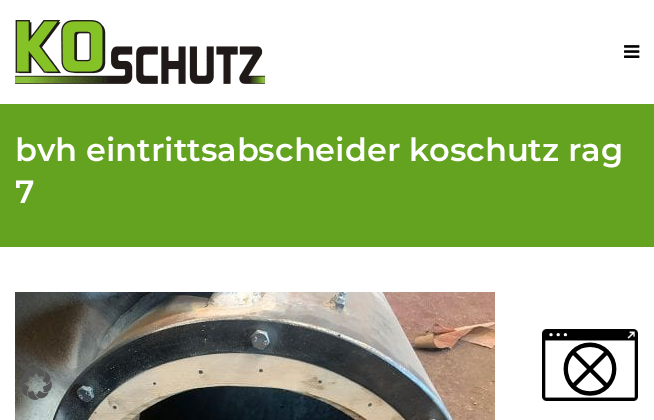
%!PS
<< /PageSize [654 420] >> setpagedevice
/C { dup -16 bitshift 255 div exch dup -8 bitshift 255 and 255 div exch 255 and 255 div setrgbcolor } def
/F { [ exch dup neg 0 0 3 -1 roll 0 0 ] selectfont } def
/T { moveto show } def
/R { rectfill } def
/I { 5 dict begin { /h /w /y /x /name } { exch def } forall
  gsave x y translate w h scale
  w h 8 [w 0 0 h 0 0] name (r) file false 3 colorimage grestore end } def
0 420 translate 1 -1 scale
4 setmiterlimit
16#FFFFFF C
0 0 654 420 R
(1.rgb) 15 20 250 64 I
(2.rgb) 624 45 16 13 I
16#64A320 C
0 104 654 143 R
/Montserrat-SemiBold 32 F
16#FFFFFF C
(bvh eintrittsabscheider koschutz rag) 15 161 T
(7) 15 203 T
(3.rgb) 15 292 480 128 I
(4.rgb) 18 366 38 38 I
(5.rgb) 542 329 96 72 I
showpage
